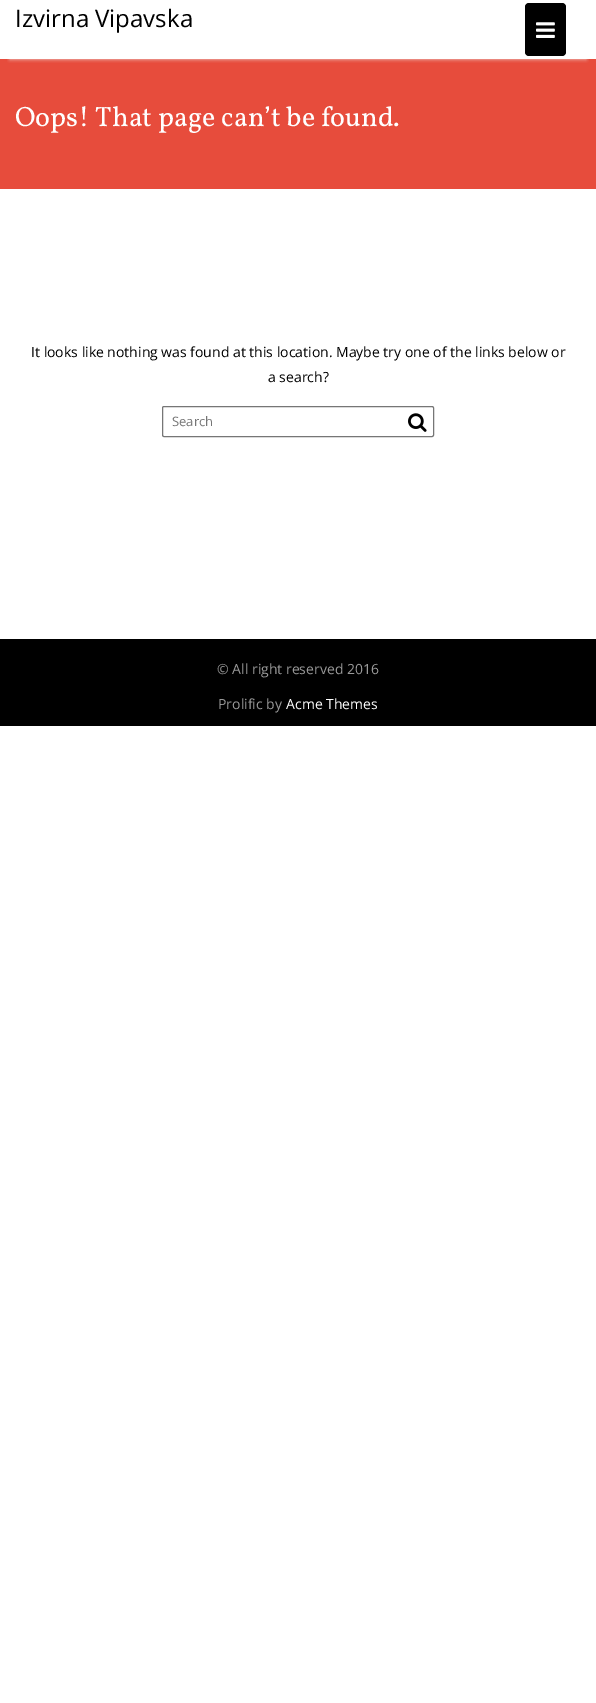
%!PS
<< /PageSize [596 1703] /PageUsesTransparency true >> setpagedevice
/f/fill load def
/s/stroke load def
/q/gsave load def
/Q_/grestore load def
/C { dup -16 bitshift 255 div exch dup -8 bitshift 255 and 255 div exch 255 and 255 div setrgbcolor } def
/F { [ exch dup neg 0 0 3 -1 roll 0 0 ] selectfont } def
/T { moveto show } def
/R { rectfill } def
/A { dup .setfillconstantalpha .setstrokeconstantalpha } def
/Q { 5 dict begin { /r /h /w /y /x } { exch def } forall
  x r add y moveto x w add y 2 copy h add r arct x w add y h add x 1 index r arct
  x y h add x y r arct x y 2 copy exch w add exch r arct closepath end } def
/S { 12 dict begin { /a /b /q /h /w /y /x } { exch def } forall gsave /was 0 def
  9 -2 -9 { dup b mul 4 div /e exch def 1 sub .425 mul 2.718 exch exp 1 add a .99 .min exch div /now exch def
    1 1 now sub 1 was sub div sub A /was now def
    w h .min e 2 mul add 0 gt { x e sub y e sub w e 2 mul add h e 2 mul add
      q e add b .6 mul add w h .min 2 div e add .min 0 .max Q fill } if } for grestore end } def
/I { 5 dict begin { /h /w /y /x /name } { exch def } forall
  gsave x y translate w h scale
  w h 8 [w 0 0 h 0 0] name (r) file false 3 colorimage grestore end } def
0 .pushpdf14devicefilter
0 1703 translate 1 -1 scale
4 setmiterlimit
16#FFFFFF C
0 0 596 1703 R
16#E74C3C C
0 59 596 130 R
q
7 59 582 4 rectclip
16#EEEEEE C
10 20 576 39 0 2 .9 S
Q_
/OpenSans-Regular 24 F
16#000000 C
(Izvirna Vipavska) 15 27 T
525 3 41 53 4 Q f
(1.rgb) 536 22 19 16 I
/Vollkorn-Regular 28 F
16#FFFFFF C
(Oops! That page can’t be found.) 15 126 T
/OpenSans-Regular 14 F
16#000000 C
(It looks like nothing was found at this location. Maybe try one of the links below or) 31 357 T
(a search?) 268 382 T
16#767676 C
162.5 406.5 271 30 1.5 Q s
/OpenSans-Regular 13 F
16#757575 C
(Search) 172 426 T
(2.rgb) 408 413 19 19 I
16#000000 C
0 639 596 87 R
/OpenSans-Regular 14 F
16#999999 C
(© All right reserved 2016) 217 674 T
(Prolific by) 218 709 T
16#FFFFFF C
(Acme Themes) 286 709 T
.poppdf14devicefilter showpage
